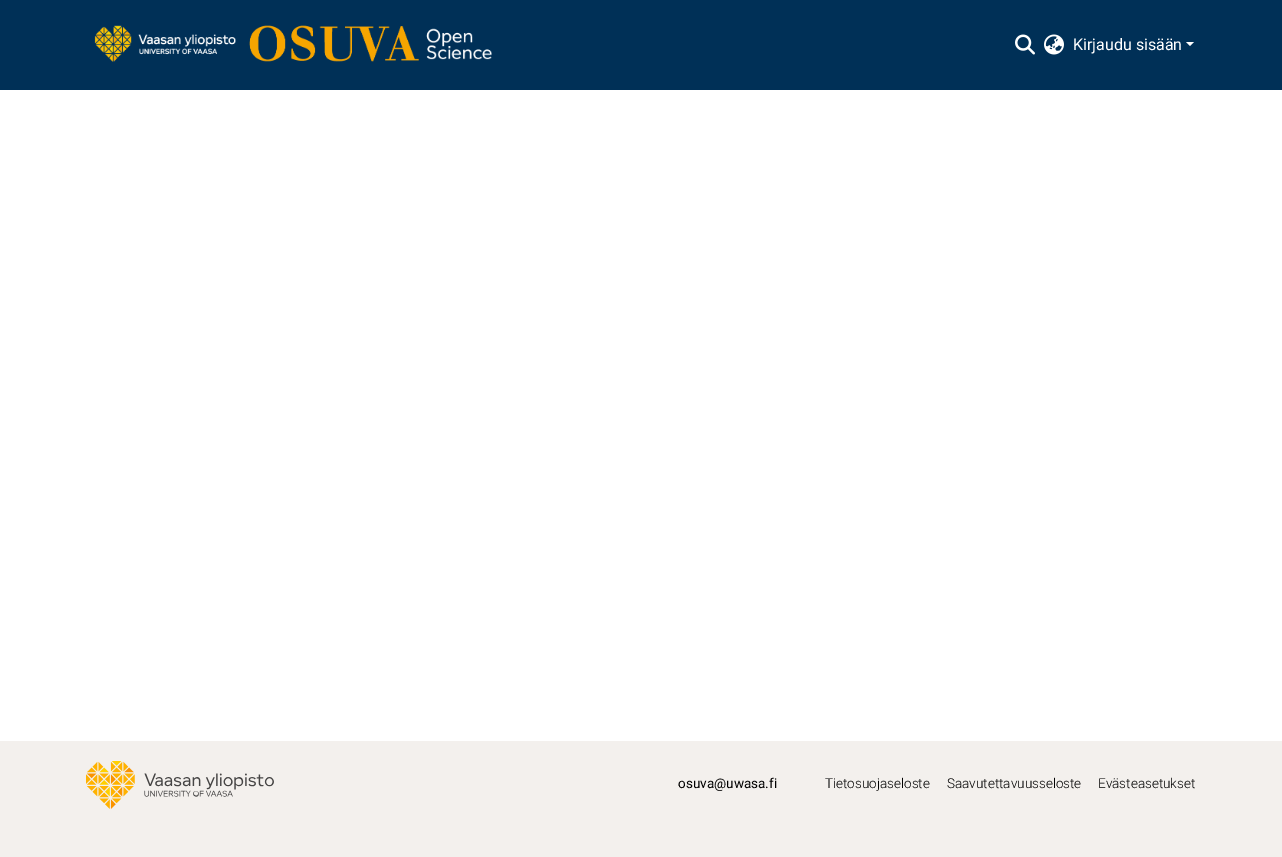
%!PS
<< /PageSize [1282 857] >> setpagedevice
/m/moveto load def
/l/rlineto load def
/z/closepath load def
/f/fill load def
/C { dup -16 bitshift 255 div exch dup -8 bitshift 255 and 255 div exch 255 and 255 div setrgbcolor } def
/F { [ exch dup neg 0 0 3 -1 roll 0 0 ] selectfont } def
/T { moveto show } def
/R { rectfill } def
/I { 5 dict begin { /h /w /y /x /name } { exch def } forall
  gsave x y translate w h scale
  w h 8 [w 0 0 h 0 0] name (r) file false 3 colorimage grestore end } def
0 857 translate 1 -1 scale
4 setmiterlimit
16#FFFFFF C
0 0 1282 857 R
16#003057 C
0 0 1282 90 R
(1.rgb) 94 25 398 37 I
(2.rgb) 1015 34 20 21 I
(3.rgb) 1044 34 20 21 I
/Roboto-Regular 16 F
16#FFFFFF C
(Kirjaudu sisään) 1073 50 T
1186 42 m 8 0 l -4 4 l z f
16#F3F0ED C
0 741 1282 116 R
(4.rgb) 86 761 188 48 I
/Roboto-Regular 13.5 F
16#000000 C
(osuva@uwasa.fi) 678 788 T
/Roboto-Light 13.5 F
(Tietosuojaseloste) 825 788 T
(Saavutettavuusseloste) 947 788 T
(Evästeasetukset) 1098 788 T
showpage
